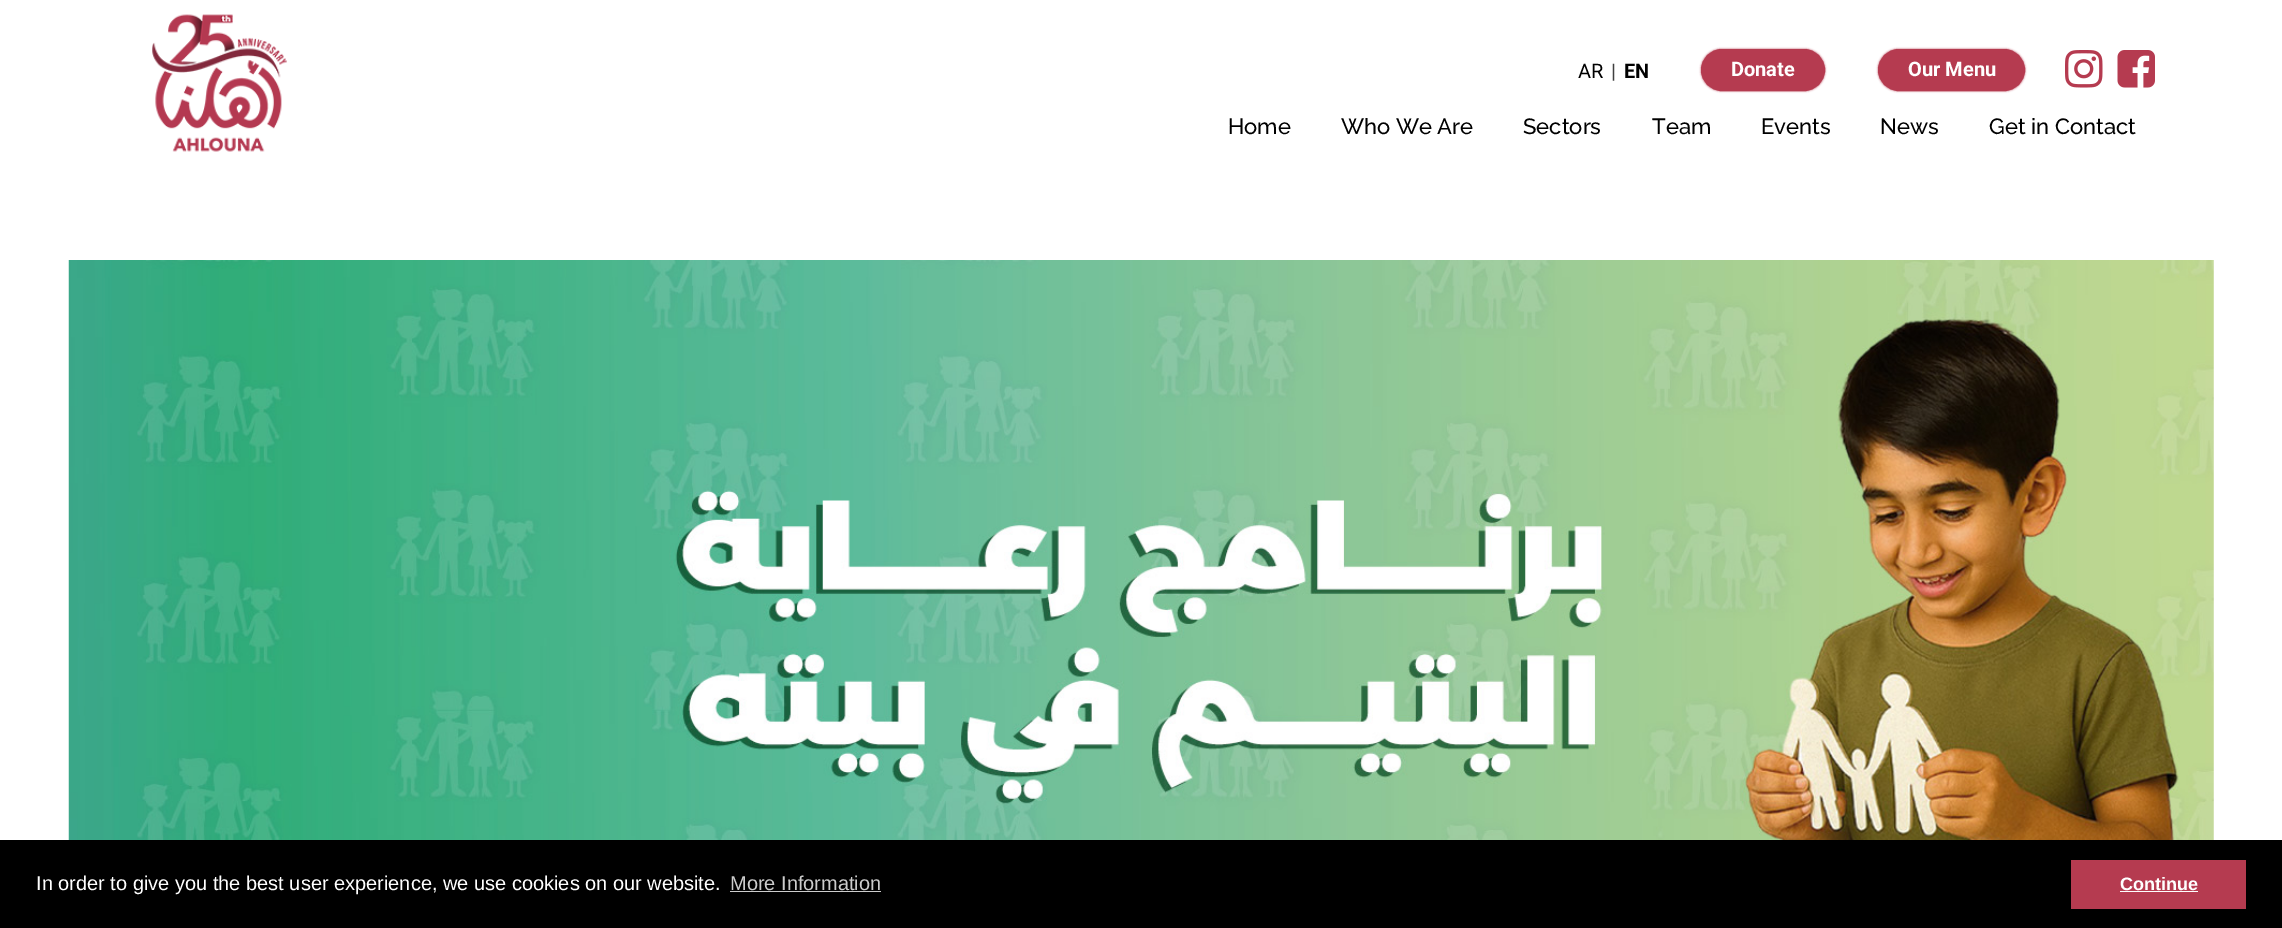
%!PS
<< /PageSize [2282 928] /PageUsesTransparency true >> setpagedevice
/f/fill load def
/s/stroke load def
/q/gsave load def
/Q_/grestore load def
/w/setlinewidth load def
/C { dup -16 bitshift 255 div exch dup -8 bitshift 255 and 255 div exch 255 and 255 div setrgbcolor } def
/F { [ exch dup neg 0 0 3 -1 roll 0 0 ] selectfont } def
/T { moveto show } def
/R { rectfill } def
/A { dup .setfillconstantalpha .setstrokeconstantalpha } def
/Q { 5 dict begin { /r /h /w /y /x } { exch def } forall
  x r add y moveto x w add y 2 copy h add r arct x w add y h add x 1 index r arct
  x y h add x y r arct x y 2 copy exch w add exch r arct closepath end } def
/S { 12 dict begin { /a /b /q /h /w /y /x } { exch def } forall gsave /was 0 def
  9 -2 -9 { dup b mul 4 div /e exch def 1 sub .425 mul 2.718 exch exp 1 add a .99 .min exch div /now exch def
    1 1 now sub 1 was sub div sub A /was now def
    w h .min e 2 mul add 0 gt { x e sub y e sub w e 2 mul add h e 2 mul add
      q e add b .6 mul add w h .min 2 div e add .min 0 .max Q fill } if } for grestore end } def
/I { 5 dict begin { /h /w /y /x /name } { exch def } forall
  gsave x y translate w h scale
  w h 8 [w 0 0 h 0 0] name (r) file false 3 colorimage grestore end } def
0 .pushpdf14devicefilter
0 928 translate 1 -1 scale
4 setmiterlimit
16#FFFFFF C
0 0 2282 928 R
(1.rgb) 152 14 135 138 I
/Roboto-Regular 20 F
16#000000 C
(AR) 1578 78 T
16#404040 C
(|) 1611 78 T
/Roboto-Bold 20 F
16#000000 C
(EN) 1624 78 T
16#B53B50 C
1701 49 124 42 21 1 1 S
1702.5 50.5 121 39 19.5 Q q f Q_
3 w
s
16#FFFFFF C
(Donate) 1731 76 T
16#B53B50 C
1878 49 147 42 21 1 1 S
1879.5 50.5 144 39 19.5 Q q f Q_
s
16#FFFFFF C
(Our Menu) 1908 76 T
(2.rgb) 2065 50 38 38 I
(3.rgb) 2117 50 38 38 I
/Raleway-Medium 22 F
16#000000 C
(Home) 1228 134 T
(Who We Are) 1341 134 T
(Sectors) 1523 134 T
(Team) 1652 134 T
(Events) 1761 134 T
(News) 1880 134 T
(Get in Contact) 1989 134 T
(4.rgb) 68 260 2146 580 I
0 840 2282 88 R
/LiberationSans-Regular 20 F
16#FFFFFF C
(In order to give you the best user experience, we use cookies on our website.) 36 890 T
16#CCCCCC C
(More Information) 730 890 T
730 891 151 1 R
16#B53B50 C
2071 860 175 49 R
/LiberationSans-Bold 18 F
16#FFFFFF C
(Continue) 2120 890 T
2120 891 78 1 R
.poppdf14devicefilter showpage
